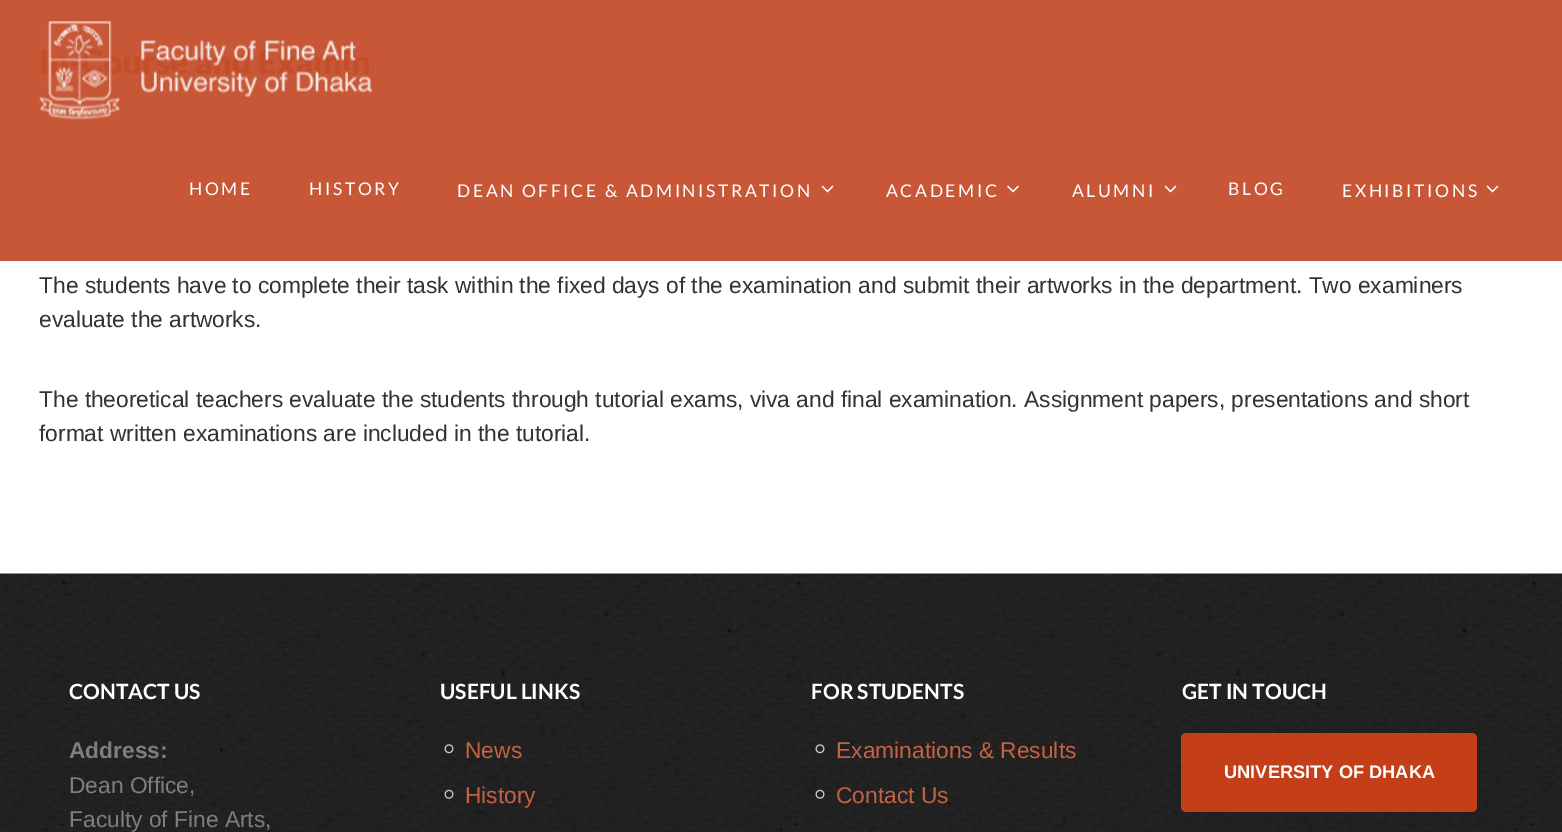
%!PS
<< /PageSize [1562 832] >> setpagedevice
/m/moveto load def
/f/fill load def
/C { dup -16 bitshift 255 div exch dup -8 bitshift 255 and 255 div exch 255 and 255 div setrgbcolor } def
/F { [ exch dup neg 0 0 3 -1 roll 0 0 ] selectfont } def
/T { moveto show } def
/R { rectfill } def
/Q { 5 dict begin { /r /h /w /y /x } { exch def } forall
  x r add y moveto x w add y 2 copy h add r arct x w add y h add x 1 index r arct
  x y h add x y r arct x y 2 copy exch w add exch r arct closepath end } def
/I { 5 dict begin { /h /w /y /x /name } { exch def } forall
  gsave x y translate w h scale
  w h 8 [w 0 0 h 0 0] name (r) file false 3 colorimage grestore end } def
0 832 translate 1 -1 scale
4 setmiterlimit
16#FFFFFF C
0 0 1562 832 R
16#C75736 C
0 0 1562 261 R
(1.rgb) 39 21 334 99 I
/Lato-Regular 17.5 F
16#FFFFFF C
189 195 m 2.6 0 (HOME) ashow
309 195 m 2.6 0 (HISTORY) ashow
457 197 m 2.6 0 (DEAN OFFICE & ADMINISTRATION) ashow
(2.rgb) 821 185 13 8 I
886 197 m 2.6 0 (ACADEMIC) ashow
(3.rgb) 1007 185 12 8 I
1072 197 m 2.6 0 (ALUMNI) ashow
(2.rgb) 1164 185 13 8 I
1228 195 m 2.6 0 (BLOG) ashow
1342 197 m 2.6 0 (EXHIBITIONS) ashow
(2.rgb) 1486 185 13 8 I
/LiberationSans-Regular 22.75 F
16#333333 C
(The students have to complete their task within the fixed days of the examination and submit their artworks in the department. Two examiners) 39 293 T
(evaluate the artworks.) 39 327 T
(The theoretical teachers evaluate the students through tutorial exams, viva and final examination. Assignment papers, presentations and short) 39 407 T
(format written examinations are included in the tutorial.) 39 441 T
(4.rgb) 0 573 1562 259 I
/Lato-Bold 21 F
16#FFFFFF C
(CONTACT US) 69 699 T
/LiberationSans-Bold 22.75 F
16#7E7E7E C
(Address:) 69 758 T
/LiberationSans-Regular 22.75 F
(Dean Office,) 69 793 T
(Faculty of Fine Arts,) 69 827 T
/Lato-Bold 21 F
16#FFFFFF C
(USEFUL LINKS) 440 699 T
(5.rgb) 444 744 10 10 I
/LiberationSans-Regular 22.75 F
16#C46244 C
(News) 465 758 T
(6.rgb) 444 789 10 10 I
(History) 465 803 T
/Lato-Bold 21 F
16#FFFFFF C
(FOR STUDENTS) 811 699 T
(7.rgb) 815 744 10 10 I
/LiberationSans-Regular 22.75 F
16#C46244 C
(Examinations & Results) 836 758 T
(8.rgb) 815 789 10 10 I
(Contact Us) 836 803 T
/Lato-Bold 21 F
16#FFFFFF C
(GET IN TOUCH) 1182 699 T
16#C43F17 C
1181 733 296 79 5 Q f
/LiberationSans-Bold 18.25 F
16#FFFFFF C
(UNIVERSITY OF DHAKA) 1224 778 T
showpage
